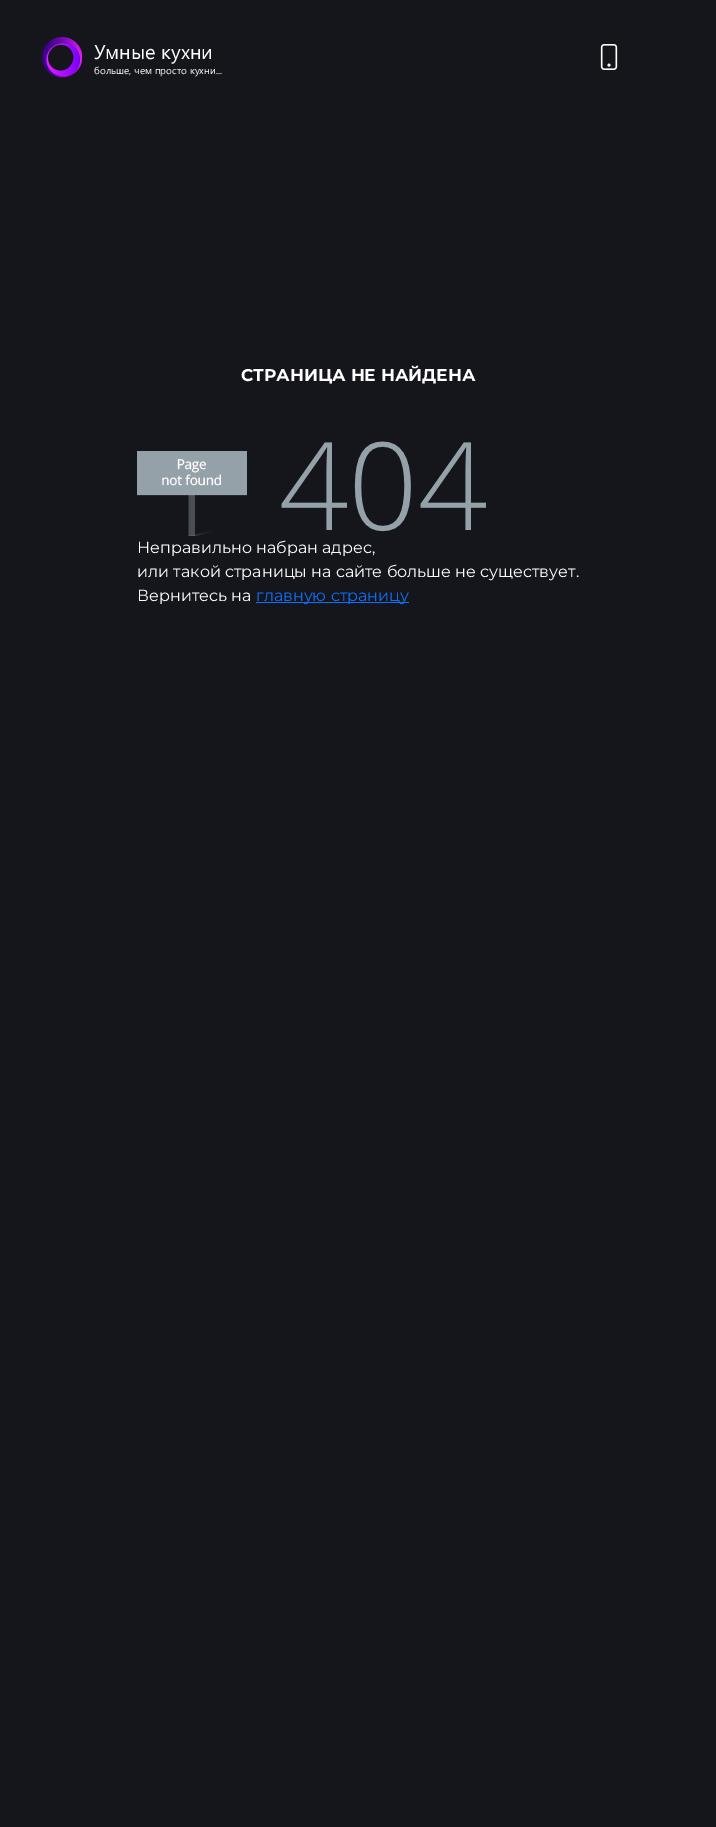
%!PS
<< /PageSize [716 1827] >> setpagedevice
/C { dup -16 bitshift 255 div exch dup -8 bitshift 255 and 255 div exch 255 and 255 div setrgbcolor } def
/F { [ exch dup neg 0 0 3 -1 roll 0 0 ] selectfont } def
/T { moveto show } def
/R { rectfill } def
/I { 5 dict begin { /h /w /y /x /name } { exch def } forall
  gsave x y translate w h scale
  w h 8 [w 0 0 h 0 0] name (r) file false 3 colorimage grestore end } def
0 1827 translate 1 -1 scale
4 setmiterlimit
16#15161C C
0 0 716 1827 R
(1.rgb) 42 37 40 41 I
/SegoeUI-Regular 20 F
16#FFFFFF C
(Умные кухни) 94 59 T
/SegoeUI-Regular 10 F
(больше, чем просто кухни...) 94 74 T
(2.rgb) 600 44 18 26 I
/Montserrat-Bold 17 F
(СТРАНИЦА НЕ НАЙДЕНА) 241 381 T
(3.rgb) 137 441 349 95 I
/Montserrat-Regular 16 F
(Неправильно набран адрес,) 137 553 T
(или такой страницы на сайте больше не существует.) 137 577 T
(Вернитесь на) 137 601 T
16#0D6EFD C
256 602 153 1 R
(главную страницу) 256 601 T
showpage
